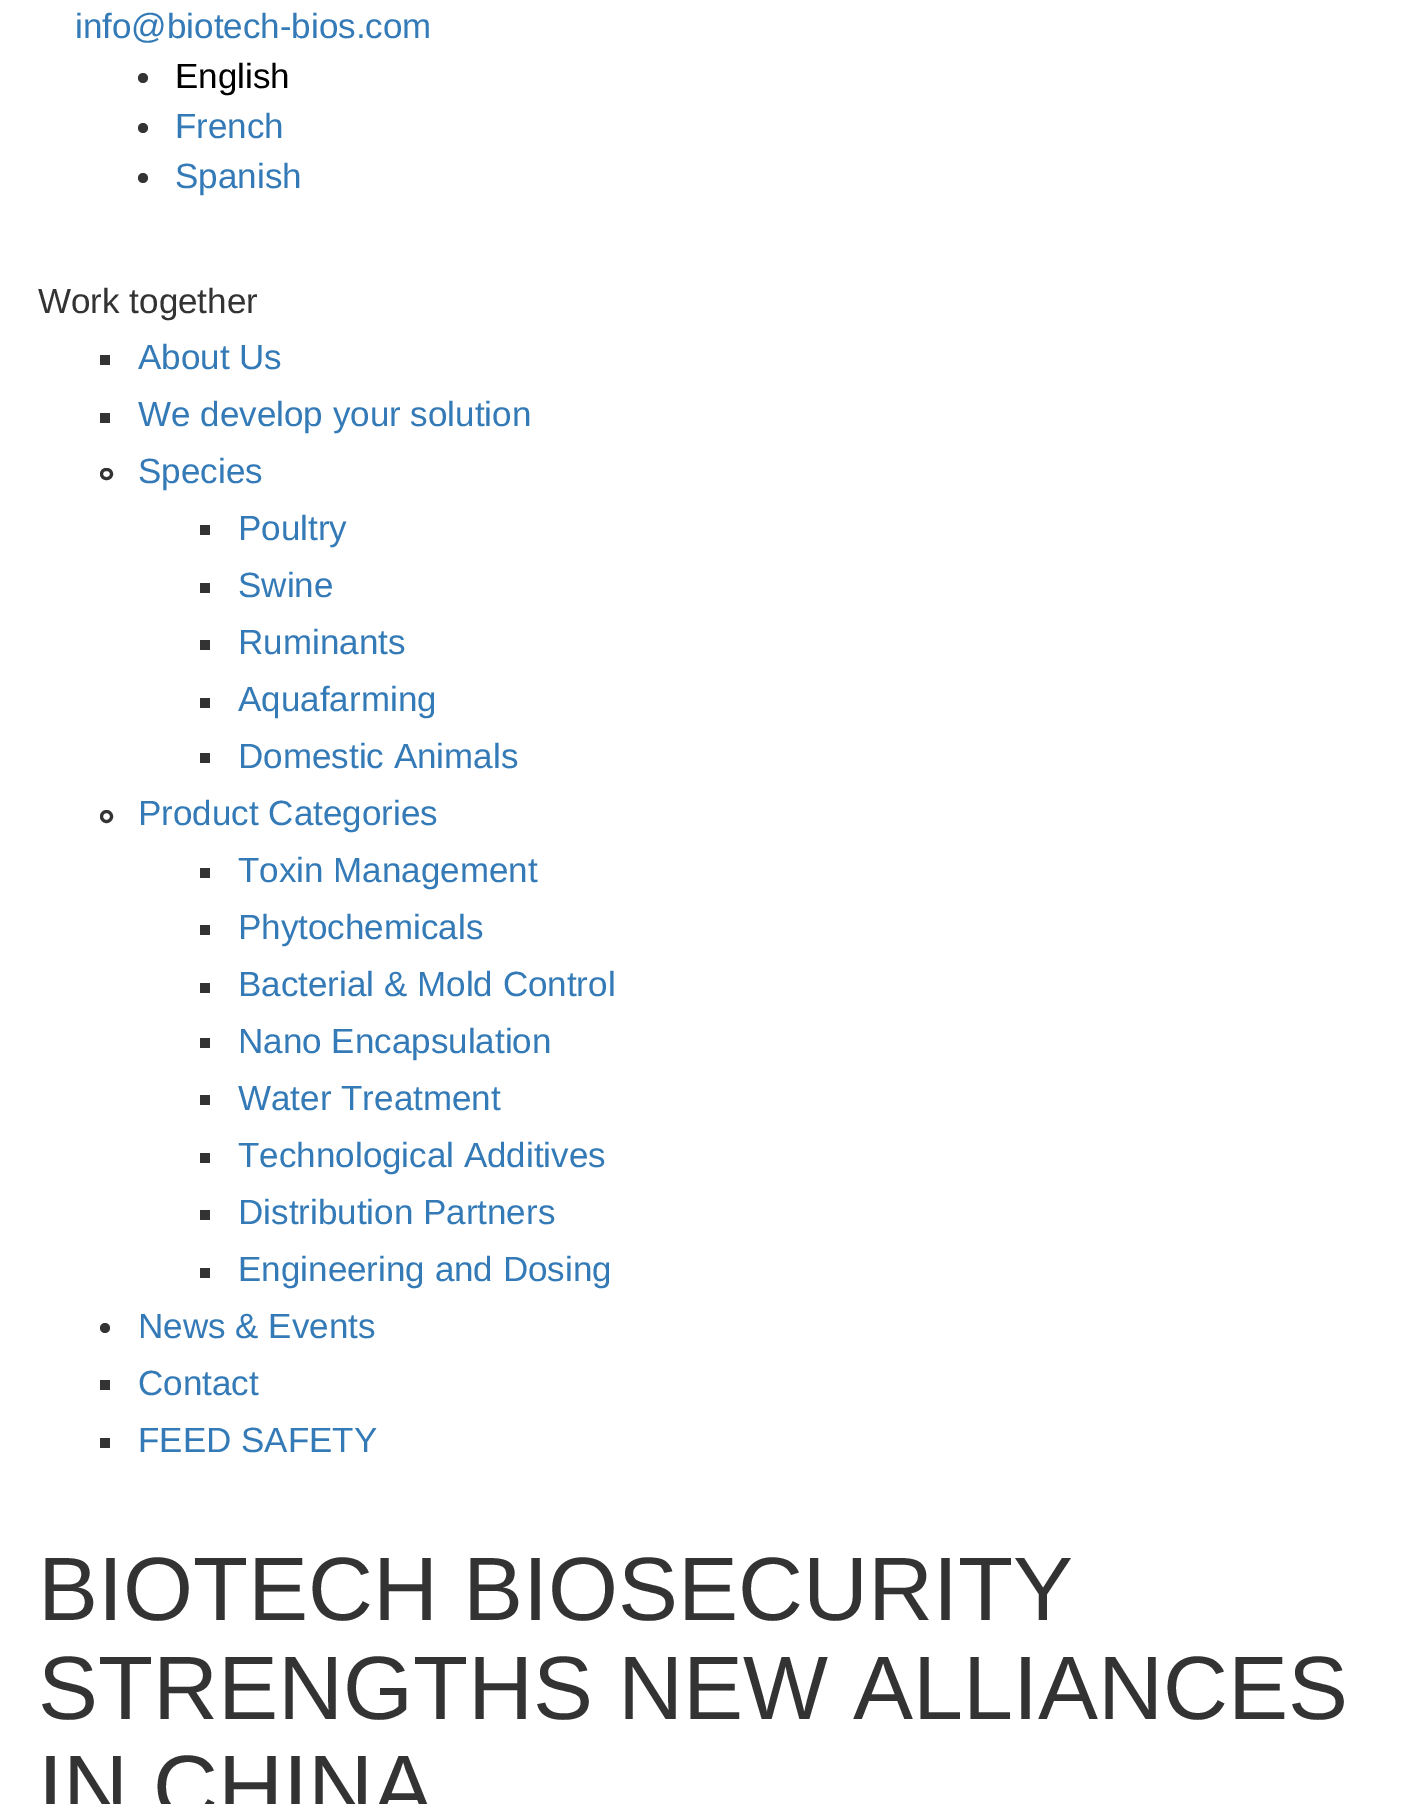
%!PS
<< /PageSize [1405 1804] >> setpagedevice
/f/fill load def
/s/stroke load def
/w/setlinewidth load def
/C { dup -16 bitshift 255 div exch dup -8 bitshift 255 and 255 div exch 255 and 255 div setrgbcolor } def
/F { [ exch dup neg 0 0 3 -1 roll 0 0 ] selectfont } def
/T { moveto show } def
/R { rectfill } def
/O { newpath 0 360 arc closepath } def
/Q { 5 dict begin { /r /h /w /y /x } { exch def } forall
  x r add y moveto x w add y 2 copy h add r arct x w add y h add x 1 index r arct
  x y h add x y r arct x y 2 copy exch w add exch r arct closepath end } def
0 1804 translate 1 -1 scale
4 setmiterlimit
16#FFFFFF C
0 0 1405 1804 R
/LiberationSans-Regular 35 F
16#337AB7 C
(info@biotech-bios.com) 75 38 T
16#333333 C
143 78 5 O f
16#000000 C
(English) 175 88 T
16#333333 C
143 128 5 O f
16#337AB7 C
(French) 175 138 T
16#333333 C
143 178 5 O f
16#337AB7 C
(Spanish) 175 188 T
16#333333 C
(Work together) 38 313 T
100 355 10 10 R
16#337AB7 C
(About Us) 138 369 T
16#333333 C
100 413 10 10 R
16#337AB7 C
(We develop your solution) 138 426 T
16#333333 C
3 w
101.5 469.5 10 9 4.5 Q s
16#337AB7 C
(Species) 138 483 T
16#333333 C
200 525 10 10 R
16#337AB7 C
(Poultry) 238 540 T
16#333333 C
200 583 10 10 R
16#337AB7 C
(Swine) 238 597 T
16#333333 C
200 640 10 10 R
16#337AB7 C
(Ruminants) 238 654 T
16#333333 C
200 698 10 10 R
16#337AB7 C
(Aquafarming) 238 711 T
16#333333 C
200 753 10 10 R
16#337AB7 C
(Domestic Animals) 238 768 T
16#333333 C
106.5 816.5 5 O s
16#337AB7 C
(Product Categories) 138 825 T
16#333333 C
200 868 10 10 R
16#337AB7 C
(Toxin Management) 238 882 T
16#333333 C
200 925 10 10 R
16#337AB7 C
(Phytochemicals) 238 939 T
16#333333 C
200 983 10 10 R
16#337AB7 C
(Bacterial & Mold Control) 238 996 T
16#333333 C
200 1038 10 10 R
16#337AB7 C
(Nano Encapsulation) 238 1053 T
16#333333 C
200 1095 10 10 R
16#337AB7 C
(Water Treatment) 238 1110 T
16#333333 C
200 1153 10 10 R
16#337AB7 C
(Technological Additives) 238 1167 T
16#333333 C
200 1210 10 10 R
16#337AB7 C
(Distribution Partners) 238 1224 T
16#333333 C
200 1268 10 10 R
16#337AB7 C
(Engineering and Dosing) 238 1281 T
16#333333 C
105 1328 5 O f
16#337AB7 C
(News & Events) 138 1338 T
16#333333 C
100 1380 10 10 R
16#337AB7 C
(Contact) 138 1395 T
16#333333 C
100 1438 10 10 R
16#337AB7 C
(FEED SAFETY) 138 1452 T
/LiberationSans-Regular 90 F
16#333333 C
(BIOTECH BIOSECURITY) 38 1620 T
(STRENGTHS NEW ALLIANCES) 38 1719 T
(IN CHINA) 38 1818 T
showpage
